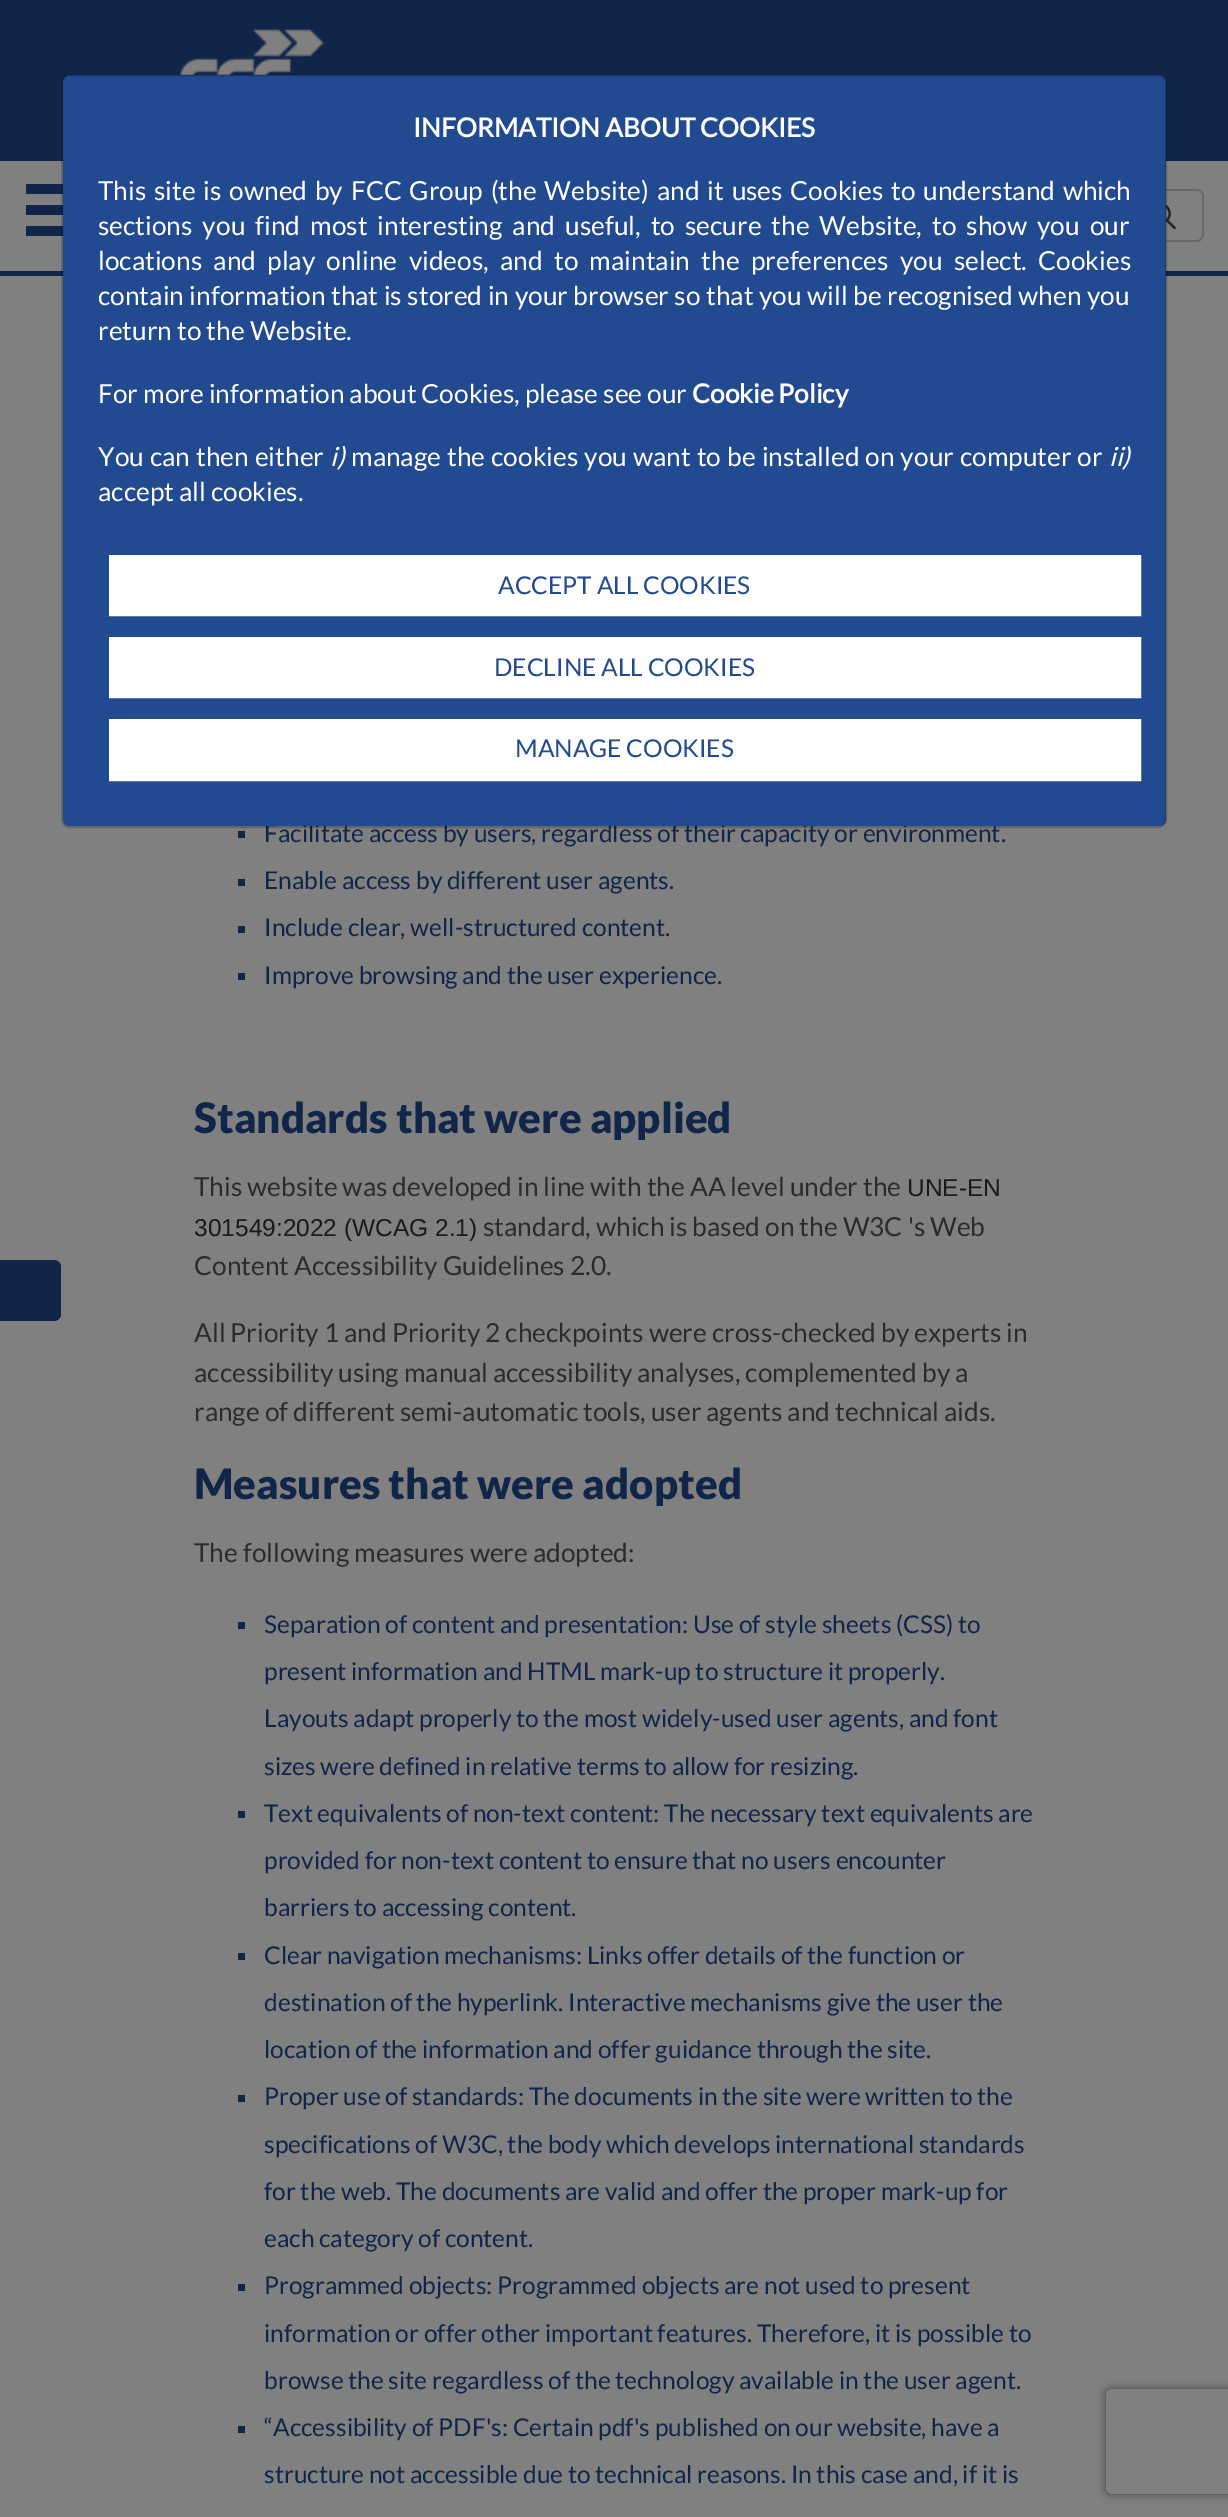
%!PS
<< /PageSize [1228 2517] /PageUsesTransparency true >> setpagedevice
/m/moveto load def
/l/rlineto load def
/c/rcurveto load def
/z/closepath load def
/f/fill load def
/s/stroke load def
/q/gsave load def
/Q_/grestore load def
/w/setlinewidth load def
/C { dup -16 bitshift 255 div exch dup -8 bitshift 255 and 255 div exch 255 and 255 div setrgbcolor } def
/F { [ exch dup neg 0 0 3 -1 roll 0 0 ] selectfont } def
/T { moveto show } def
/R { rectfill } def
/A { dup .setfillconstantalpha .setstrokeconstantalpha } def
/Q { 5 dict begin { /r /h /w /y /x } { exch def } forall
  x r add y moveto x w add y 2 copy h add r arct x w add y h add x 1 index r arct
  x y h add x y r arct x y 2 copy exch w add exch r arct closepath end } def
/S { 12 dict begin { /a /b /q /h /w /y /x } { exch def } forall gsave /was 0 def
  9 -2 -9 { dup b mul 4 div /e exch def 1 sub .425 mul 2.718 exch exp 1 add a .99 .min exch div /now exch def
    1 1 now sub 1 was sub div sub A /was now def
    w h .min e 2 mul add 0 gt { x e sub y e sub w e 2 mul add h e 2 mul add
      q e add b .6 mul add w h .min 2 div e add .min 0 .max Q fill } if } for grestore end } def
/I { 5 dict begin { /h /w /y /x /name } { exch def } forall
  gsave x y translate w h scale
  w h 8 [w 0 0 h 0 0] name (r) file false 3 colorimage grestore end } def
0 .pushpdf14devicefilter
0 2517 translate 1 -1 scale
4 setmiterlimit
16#808080 C
0 0 1228 2517 R
16#112549 C
0 0 1228 161 R
(1.rgb) 179 29 146 46 I
0 271 1228 5 R
26 205 37 10 R
26 184 37 10 R
26 226 37 10 R
16#676A6D C
1124 189 m 73 0 l 4 0 7 3 7 7 c 0 38 l 0 4 -3 8 -7 8 c -73 0 l z 1124 191 m 73 0 l 3 0 5 2 5 5 c 0 38 l 0 3 -2 6 -5 6 c -73 0 l z eofill
(2.rgb) 1166 204 10 25 I
/Lato-Regular 24.5 F
16#112549 C
(Facilitate access by users, regardless of their capacity or environment.) 264 842 T
16#224A91 C
63 75 1103 751 7 Q f
0.2 A
16#000000 C
2 w
62 75 1104 752 8 Q s
/Lato-Bold 26.25 F
1 A
16#FFFFFF C
(INFORMATION ABOUT COOKIES) 413 137 T
/Lato-Regular 26.25 F
98 200 m 2.75 0 32 (This site is owned by FCC Group \(the Website\) and it uses Cookies to understand which) widthshow
98 235 m 5 0 32 (sections you find most interesting and useful, to secure the Website, to show you our) widthshow
98 270 m 6.25 0 32 (locations and play online videos, and to maintain the preferences you select. Cookies) widthshow
98 305 m .5 0 32 (contain information that is stored in your browser so that you will be recognised when you) widthshow
(return to the Website.) 98 340 T
(For more information about Cookies, please see our) 98 403 T
/Lato-Bold 26.25 F
(Cookie Policy) 692 403 T
/Lato-Regular 26.25 F
98 466 m 1 0 32 (You can then either) widthshow
/Lato-Italic 26.25 F
(i\)) 330 466 T
/Lato-Regular 26.25 F
351 466 m 1 0 32 (manage the cookies you want to be installed on your computer or) widthshow
/Lato-Italic 26.25 F
(ii\)) 1109 466 T
/Lato-Regular 26.25 F
(accept all cookies.) 98 501 T
110 556 m 1030 0 l 0 59 l -1030 0 l z q f Q_
s
/Lato-Regular 24.5 F
16#224A91 C
(ACCEPT ALL COOKIES) 498 594 T
16#FFFFFF C
110 638 m 1030 0 l 0 59 l -1030 0 l z q f Q_
s
16#224A91 C
(DECLINE ALL COOKIES) 494 676 T
16#FFFFFF C
110 720 m 1030 0 l 0 60 l -1030 0 l z q f Q_
s
16#224A91 C
(MANAGE COOKIES) 515 757 T
16#112549 C
0 1260 m 54 0 l 4 0 7 3 7 7 c 0 47 l 0 4 -3 7 -7 7 c -54 0 l z f
238 831 7 7 R
238 879 7 7 R
(Enable access by different user agents.) 264 889 T
238 926 7 7 R
(Include clear, well-structured content.) 264 936 T
238 973 7 7 R
(Improve browsing and the user experience.) 264 984 T
/Lato-Black 42 F
(Standards that were applied) 194 1133 T
/Lato-Regular 26.25 F
16#2B2B2B C
(This website was developed in line with the AA level under the) 194 1196 T
/LiberationSans-Regular 24.5 F
16#1A1A1A C
(UNE-EN) 907 1196 T
(301549:2022 \(WCAG 2.1\)) 194 1236 T
/Lato-Regular 26.25 F
16#2B2B2B C
(standard, which is based on the W3C 's Web) 483 1236 T
(Content Accessibility Guidelines 2.0.) 194 1275 T
(All Priority 1 and Priority 2 checkpoints were cross-checked by experts in) 194 1342 T
(accessibility using manual accessibility analyses, complemented by a) 194 1382 T
(range of different semi-automatic tools, user agents and technical aids.) 194 1421 T
/Lato-Black 42 F
16#112549 C
(Measures that were adopted) 194 1499 T
/Lato-Regular 26.25 F
16#2B2B2B C
(The following measures were adopted:) 194 1562 T
16#112549 C
238 1622 7 7 R
/Lato-Regular 24.5 F
(Separation of content and presentation: Use of style sheets \(CSS\) to) 264 1633 T
(present information and HTML mark-up to structure it properly.) 264 1680 T
(Layouts adapt properly to the most widely-used user agents, and font) 264 1727 T
(sizes were defined in relative terms to allow for resizing.) 264 1775 T
238 1811 7 7 R
(Text equivalents of non-text content: The necessary text equivalents are) 264 1822 T
(provided for non-text content to ensure that no users encounter) 264 1869 T
(barriers to accessing content.) 264 1916 T
238 1953 7 7 R
(Clear navigation mechanisms: Links offer details of the function or) 264 1964 T
(destination of the hyperlink. Interactive mechanisms give the user the) 264 2011 T
(location of the information and offer guidance through the site.) 264 2058 T
238 2095 7 7 R
(Proper use of standards: The documents in the site were written to the) 264 2105 T
(specifications of W3C, the body which develops international standards) 264 2153 T
(for the web. The documents are valid and offer the proper mark-up for) 264 2200 T
(each category of content.) 264 2247 T
238 2284 7 7 R
(Programmed objects: Programmed objects are not used to present) 264 2294 T
(information or offer other important features. Therefore, it is possible to) 264 2342 T
(browse the site regardless of the technology available in the user agent.) 264 2389 T
238 2426 7 7 R
(“Accessibility of PDF's: Certain pdf's published on our website, have a) 264 2436 T
(structure not accessible due to technical reasons. In this case and, if it is) 264 2483 T
q
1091 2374 m 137 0 l 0 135 l -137 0 l z 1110 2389 m 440 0 l 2 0 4 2 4 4 c 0 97 l 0 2 -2 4 -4 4 c -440 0 l -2 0 -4 -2 -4 -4 c 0 -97 l 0 -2 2 -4 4 -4 c z eoclip newpath
16#404040 C
1106 2389 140 105 4 4.5 1 S
Q_
.poppdf14devicefilter showpage
